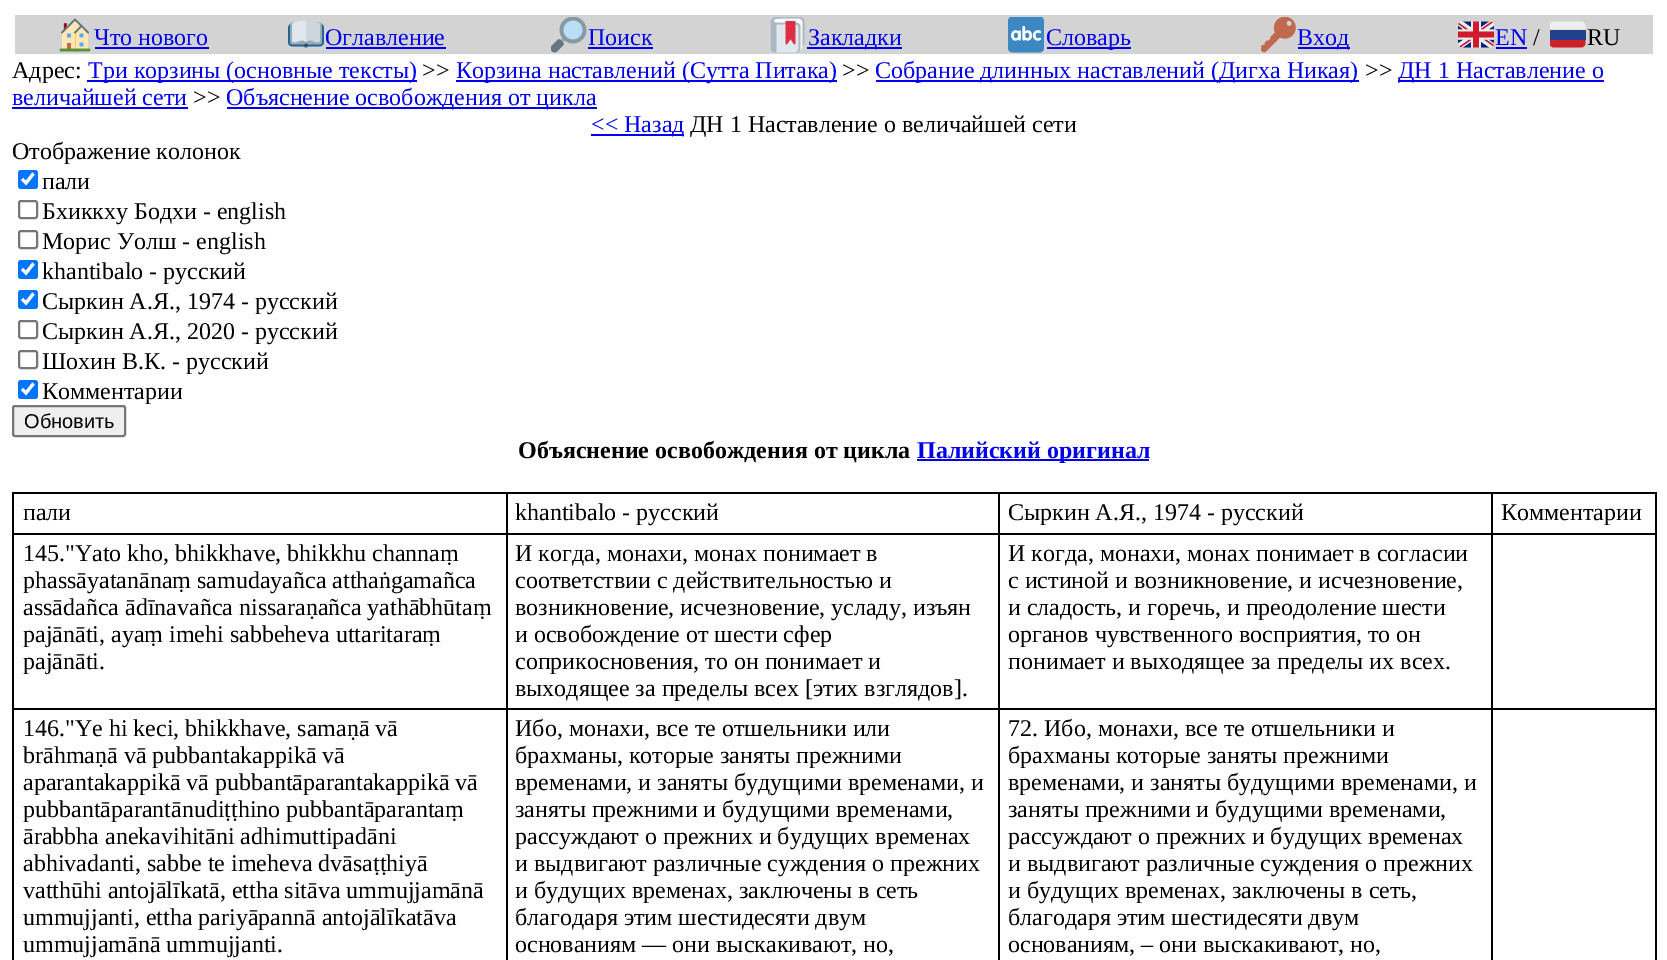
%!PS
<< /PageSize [1667 960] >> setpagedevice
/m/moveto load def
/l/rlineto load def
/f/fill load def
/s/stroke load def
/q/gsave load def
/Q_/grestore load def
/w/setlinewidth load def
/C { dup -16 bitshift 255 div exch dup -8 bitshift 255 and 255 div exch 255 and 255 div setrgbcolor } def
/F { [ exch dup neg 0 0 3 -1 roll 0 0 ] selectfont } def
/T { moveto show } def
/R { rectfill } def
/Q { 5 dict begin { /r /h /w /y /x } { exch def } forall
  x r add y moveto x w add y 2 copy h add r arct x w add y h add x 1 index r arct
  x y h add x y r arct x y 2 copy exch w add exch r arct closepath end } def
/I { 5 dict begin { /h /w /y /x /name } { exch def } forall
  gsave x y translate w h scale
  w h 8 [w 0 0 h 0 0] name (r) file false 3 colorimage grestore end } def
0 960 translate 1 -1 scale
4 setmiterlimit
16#FFFFFF C
0 0 1667 960 R
16#D3D3D3 C
15 15 1638 39 R
(1.rgb) 59 18 32 34 I
/LiberationSerif-Regular 24 F
16#0000EE C
(Что нового) 94 45 T
95 47 114 2 R
(2.rgb) 288 20 36 28 I
(Оглавление) 325 45 T
326 47 120 2 R
(3.rgb) 551 17 36 36 I
(Поиск) 588 45 T
588 47 65 2 R
(4.rgb) 770 17 35 36 I
807 47 95 2 R
(Закладки) 808 45 T
(5.rgb) 1008 17 36 36 I
1047 47 84 2 R
(Словарь) 1046 45 T
(6.rgb) 1261 17 35 36 I
1298 47 52 2 R
(Вход) 1297 45 T
(7.rgb) 1458 21 36 27 I
(EN) 1495 45 T
1496 47 31 2 R
16#000000 C
(/) 1533 45 T
(8.rgb) 1550 21 36 27 I
(RU) 1587 45 T
(Адрес:) 12 78 T
16#0000EE C
87 80 330 2 R
(Три корзины \(основные тексты\)) 88 78 T
16#000000 C
(>>) 422 78 T
16#0000EE C
456 80 381 2 R
(Корзина наставлений \(Сутта Питака\)) 456 78 T
16#000000 C
(>>) 842 78 T
16#0000EE C
876 80 483 2 R
(Собрание длинных наставлений \(Дигха Никая\)) 875 78 T
16#000000 C
(>>) 1365 78 T
16#0000EE C
1398 80 206 2 R
(ДН 1 Наставление о) 1398 78 T
(величайшей сети) 12 105 T
12 107 176 2 R
16#000000 C
(>>) 193 105 T
16#0000EE C
227 107 370 2 R
(Объяснение освобождения от цикла) 226 105 T
591 134 93 2 R
(<< Назад) 591 132 T
16#000000 C
(ДН 1 Наставление о величайшей сети) 690 132 T
(Отображение колонок) 12 159 T
16#0075FF C
18 170 20 19 3 Q f
16#FFFFFF C
3.1 w
22 179 m 4 4 l 7.5 -9.5 l s
16#000000 C
(пали) 42 189 T
16#767676 C
2 w
19 201 18 17 2 Q s
16#000000 C
(Бхиккху Бодхи - english) 42 219 T
16#767676 C
19 231 18 17 2 Q s
16#000000 C
(Морис Уолш - english) 42 249 T
16#0075FF C
18 260 20 19 3 Q f
16#FFFFFF C
3.1 w
22 269 m 4 4 l 7.5 -9.5 l s
16#000000 C
(khantibalo - русский) 42 279 T
16#0075FF C
18 290 20 19 3 Q f
16#FFFFFF C
22 299 m 4 4 l 7.5 -9.5 l s
16#000000 C
(Сыркин А.Я., 1974 - русский) 42 309 T
16#767676 C
2 w
19 321 18 17 2 Q s
16#000000 C
(Сыркин А.Я., 2020 - русский) 42 339 T
16#767676 C
19 351 18 17 2 Q s
16#000000 C
(Шохин В.К. - русский) 42 369 T
16#0075FF C
18 380 20 19 3 Q f
16#FFFFFF C
3.1 w
22 389 m 4 4 l 7.5 -9.5 l s
16#000000 C
(Комментарии) 42 399 T
16#EFEFEF C
13 406 112 30 2 Q q f Q_
16#767676 C
2 w
s
/LiberationSans-Regular 20 F
16#000000 C
(Обновить) 24 428 T
/LiberationSerif-Bold 24 F
(Объяснение освобождения от цикла) 518 458 T
16#0000EE C
917 459 232 2 R
(Палийский оригинал) 917 458 T
16#000000 C
1491 492 165 2 R
1491 533 165 2 R
1491 708 165 2 R
1491 708 2 252 R
998 708 495 2 R
1491 533 2 177 R
998 533 495 2 R
1491 492 2 42 R
998 492 495 2 R
998 708 2 252 R
506 708 493 2 R
998 533 2 177 R
506 533 493 2 R
998 492 2 42 R
506 492 493 2 R
506 708 2 252 R
12 708 495 2 R
506 533 2 177 R
12 533 495 2 R
506 492 2 42 R
12 492 495 2 R
12 708 2 252 R
12 533 2 177 R
12 492 2 42 R
/LiberationSerif-Regular 24 F
(пали) 23 520 T
(khantibalo - русский) 515 520 T
(Сыркин А.Я., 1974 - русский) 1008 520 T
1655 708 2 252 R
1655 533 2 177 R
1655 492 2 42 R
(Комментарии) 1501 520 T
(145."Yato kho, bhikkhave, bhikkhu channaṃ) 23 561 T
(phassāyatanānaṃ samudayañca atthaṅgamañca) 23 588 T
(assādañca ādīnavañca nissaraṇañca yathābhūtaṃ) 23 615 T
(pajānāti, ayaṃ imehi sabbeheva uttaritaraṃ) 23 642 T
(pajānāti.) 23 669 T
(И когда, монахи, монах понимает в) 515 561 T
(соответствии с действительностью и) 515 588 T
(возникновение, исчезновение, усладу, изъян) 515 615 T
(и освобождение от шести сфер) 515 642 T
(соприкосновения, то он понимает и) 515 669 T
(выходящее за пределы всех [этих взглядов].) 515 696 T
(И когда, монахи, монах понимает в согласии) 1008 561 T
(с истиной и возникновение, и исчезновение,) 1008 588 T
(и сладость, и горечь, и преодоление шести) 1008 615 T
(органов чувственного восприятия, то он) 1008 642 T
(понимает и выходящее за пределы их всех.) 1008 669 T
(146."Ye hi keci, bhikkhave, samaṇā vā) 23 736 T
(brāhmaṇā vā pubbantakappikā vā) 23 763 T
(aparantakappikā vā pubbantāparantakappikā vā) 23 790 T
(pubbantāparantānudiṭṭhino pubbantāparantaṃ) 23 817 T
(ārabbha anekavihitāni adhimuttipadāni) 23 844 T
(abhivadanti, sabbe te imeheva dvāsaṭṭhiyā) 23 871 T
(vatthūhi antojālīkatā, ettha sitāva ummujjamānā) 23 898 T
(ummujjanti, ettha pariyāpannā antojālīkatāva) 23 925 T
(ummujjamānā ummujjanti.) 23 952 T
(Ибо, монахи, все те отшельники или) 515 736 T
(брахманы, которые заняты прежними) 515 763 T
(временами, и заняты будущими временами, и) 515 790 T
(заняты прежними и будущими временами,) 515 817 T
(рассуждают о прежних и будущих временах) 515 844 T
(и выдвигают различные суждения о прежних) 515 871 T
(и будущих временах, заключены в сеть) 515 898 T
(благодаря этим шестидесяти двум) 515 925 T
(основаниям — они выскакивают, но,) 515 952 T
(72. Ибо, монахи, все те отшельники и) 1008 736 T
(брахманы которые заняты прежними) 1008 763 T
(временами, и заняты будущими временами, и) 1008 790 T
(заняты прежними и будущими временами,) 1008 817 T
(рассуждают о прежних и будущих временах) 1008 844 T
(и выдвигают различные суждения о прежних) 1008 871 T
(и будущих временах, заключены в сеть,) 1008 898 T
(благодаря этим шестидесяти двум) 1008 925 T
(основаниям, – они выскакивают, но,) 1008 952 T
showpage
